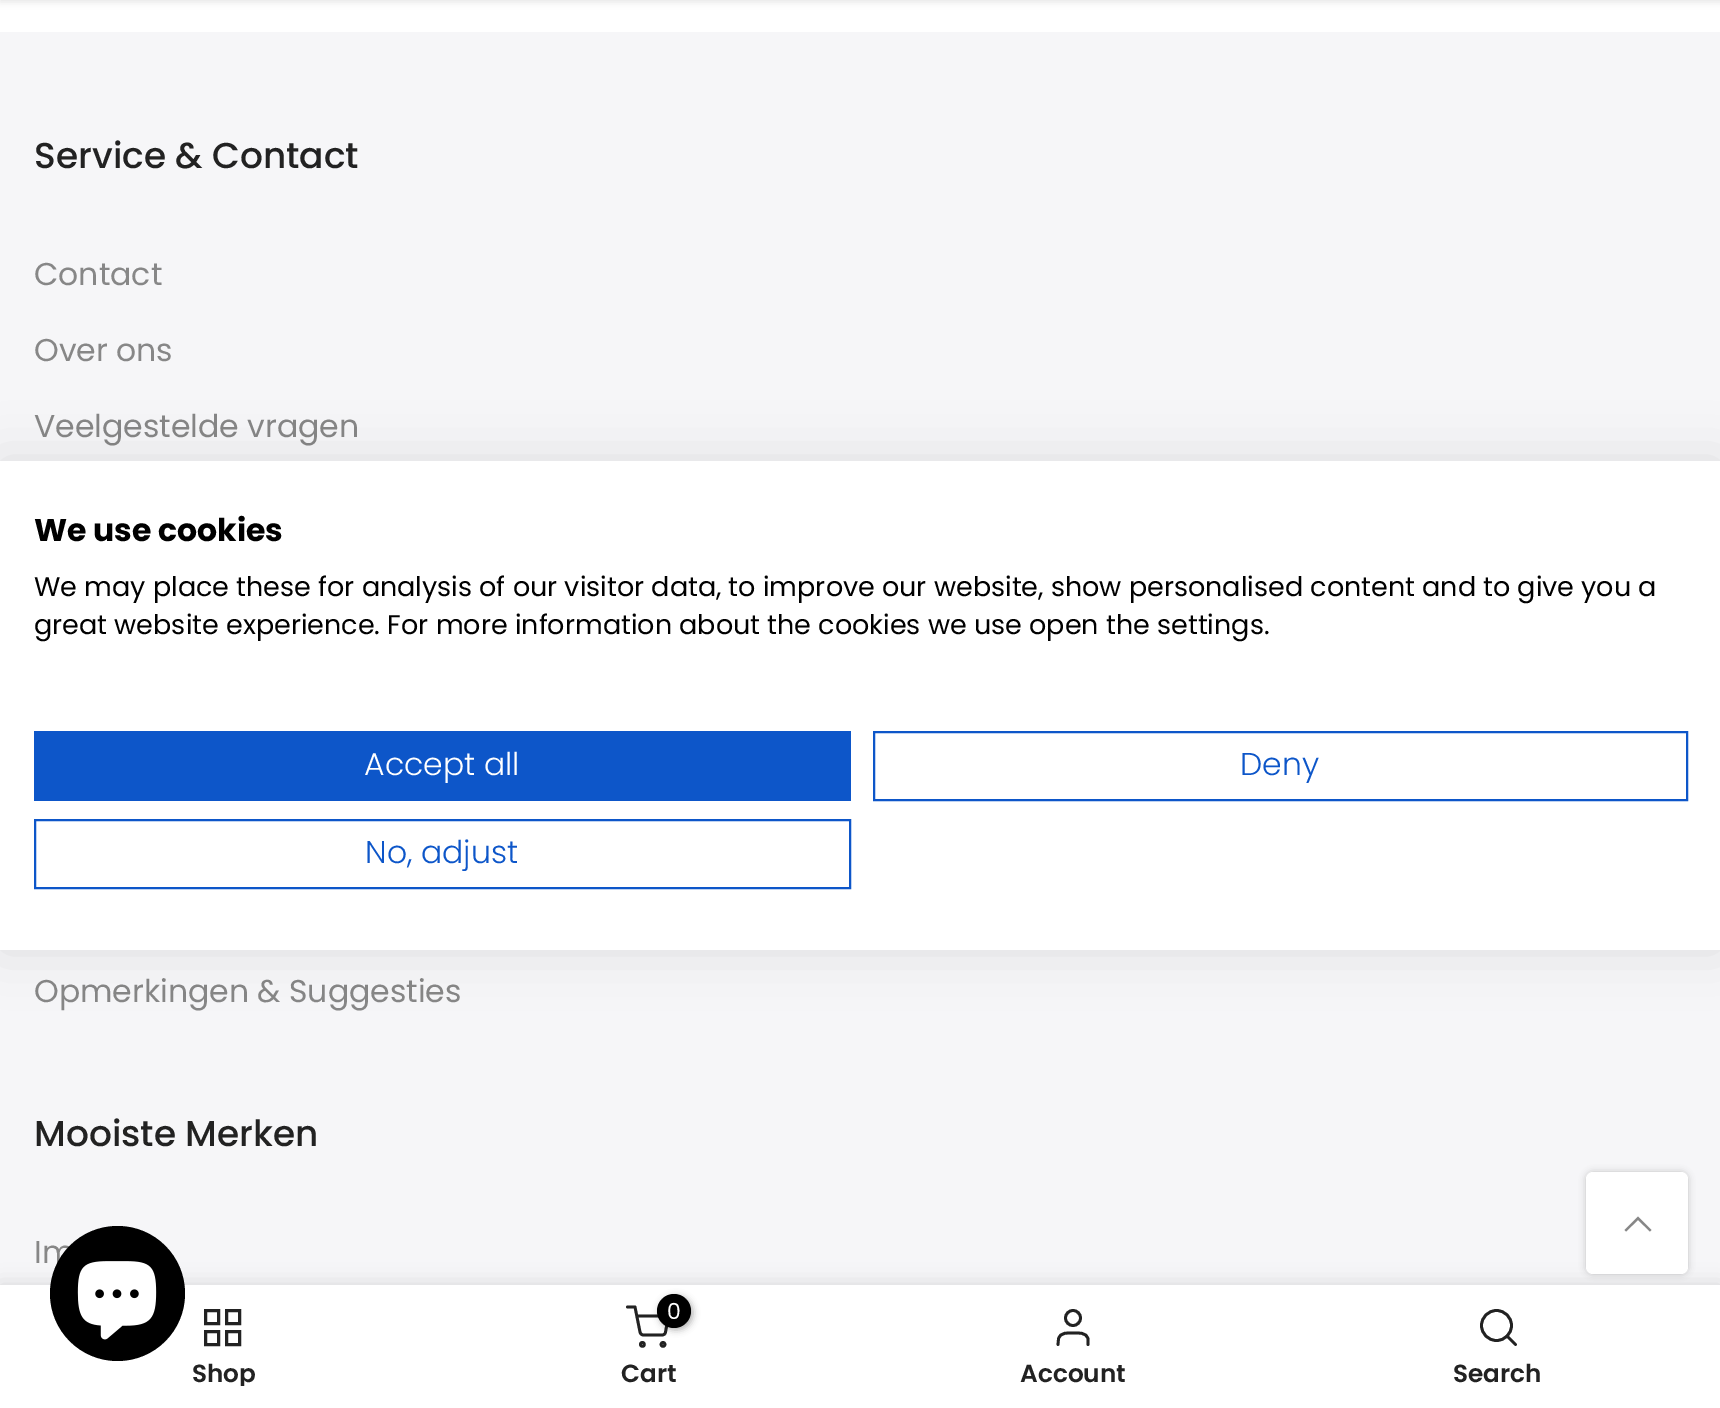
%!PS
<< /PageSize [1720 1408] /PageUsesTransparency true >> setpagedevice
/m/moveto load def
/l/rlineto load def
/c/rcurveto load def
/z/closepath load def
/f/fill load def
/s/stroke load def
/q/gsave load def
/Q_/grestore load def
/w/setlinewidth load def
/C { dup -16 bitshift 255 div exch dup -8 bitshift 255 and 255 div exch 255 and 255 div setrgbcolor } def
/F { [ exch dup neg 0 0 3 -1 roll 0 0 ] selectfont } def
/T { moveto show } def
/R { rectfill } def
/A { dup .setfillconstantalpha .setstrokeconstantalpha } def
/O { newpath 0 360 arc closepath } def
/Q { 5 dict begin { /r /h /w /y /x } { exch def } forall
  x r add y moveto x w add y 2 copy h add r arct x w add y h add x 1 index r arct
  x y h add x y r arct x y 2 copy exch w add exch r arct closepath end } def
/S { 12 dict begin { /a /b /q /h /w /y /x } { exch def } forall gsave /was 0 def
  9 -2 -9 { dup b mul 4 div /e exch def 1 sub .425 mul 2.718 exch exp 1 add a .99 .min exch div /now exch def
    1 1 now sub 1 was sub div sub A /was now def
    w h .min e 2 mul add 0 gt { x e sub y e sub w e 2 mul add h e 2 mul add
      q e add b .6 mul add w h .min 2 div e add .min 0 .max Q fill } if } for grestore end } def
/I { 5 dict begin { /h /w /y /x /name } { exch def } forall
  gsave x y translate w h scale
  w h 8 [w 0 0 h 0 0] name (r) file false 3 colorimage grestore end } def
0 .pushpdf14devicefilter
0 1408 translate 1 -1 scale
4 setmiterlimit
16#FFFFFF C
0 0 1720 1408 R
16#000000 C
0 -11 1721 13 0 3.5 .1 S
16#F6F6F8 C
0 32 1720 1253 R
/Poppins-Medium 36 F
16#222222 C
(Service & Contact) 34 168 T
/Poppins-Regular 31.5 F
16#878787 C
(Contact) 34 285 T
(Over ons) 34 361 T
(Veelgestelde vragen) 34 437 T
(Opmerkingen & Suggesties) 34 1002 T
/Poppins-Medium 36 F
16#222222 C
(Mooiste Merken) 34 1146 T
/Poppins-Regular 31.5 F
16#878787 C
(Im) 34 1263 T
16#000000 C
0 461 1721 489 0 27 .1 S
16#FFFFFF C
0 461 1720 489 R
/Poppins-Bold 31.5 F
16#000000 C
(We use cookies) 34 541 T
/Poppins-Regular 27 F
(We may place these for analysis of our visitor data, to improve our website, show personalised content and to give you a) 34 596 T
(great website experience. For more information about the cookies we use open the settings.) 34 634 T
16#0D56C9 C
34 731 817 70 R
/Poppins-Light 31.5 F
16#FFFFFF C
(Accept all) 364 775 T
16#0D56C9 C
2 w
874 732 813 68 rectstroke
(Deny) 1240 775 T
35 820 815 68 rectstroke
(No, adjust) 365 863 T
16#000000 C
0 1285 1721 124 0 10 .12 S
16#FFFFFF C
0 1285 1720 123 R
16#000000 C
117.5 1293.5 67.5 O f
(1.rgb) 77 1261 80 79 I
16#222222 C
3 w
205.5 1310.5 13 13 rectstroke
226.5 1310.5 13 13 rectstroke
205.5 1331.5 13 13 rectstroke
226.5 1331.5 13 13 rectstroke
q
34 1361 380 25 rectclip
/Poppins-SemiBold 24.75 F
(Shop) 192 1382 T
Q_
2.8 w
1 setlinecap
1 setlinejoin
627.5 1307 m 7.5 0 l 5 25 l .5 2 2 3 3.5 3 c 18.5 0 l 1.5 0 3.5 -1 3.5 -3 c 3 -16 l -31.5 0 l s
0 setlinecap
0 setlinejoin
663 1344.4 1.9 O s
16#000000 C
659 1296 34 34 17 3.5 .3 S
674 1311 17 O f
/Poppins-Regular 22 F
16#FFFFFF C
(0) 667 1319 T
16#222222 C
642.4 1344.4 1.9 O s
/Poppins-SemiBold 24.75 F
(Cart) 621 1382 T
1073 1318 7.5 O s
1 setlinecap
1 setlinejoin
1088 1344.5 m 0 -5.5 l -1.5 -7 -9.5 -6 -15 -6 c -5 0 -13 -1 -14.5 6 c -.5 5.5 l s
(Account) 1020 1382 T
0 setlinecap
0 setlinejoin
1496.5 1325.5 15 O s
1 setlinecap
1 setlinejoin
1515.5 1344.5 m -8.5 -8.5 l s
(Search) 1453 1382 T
16#000000 C
1586 1172 102 102 7 3.5 .2 S
16#FFFFFF C
1586 1172 102 102 7 Q f
16#878787 C
1639.5 1218 m -1.5 -1.5 l -13.5 13.5 l 1.5 1.5 l 12 -11.5 l 12 11.5 l 1.5 -1.5 l -7 -7 l z f
.poppdf14devicefilter showpage
